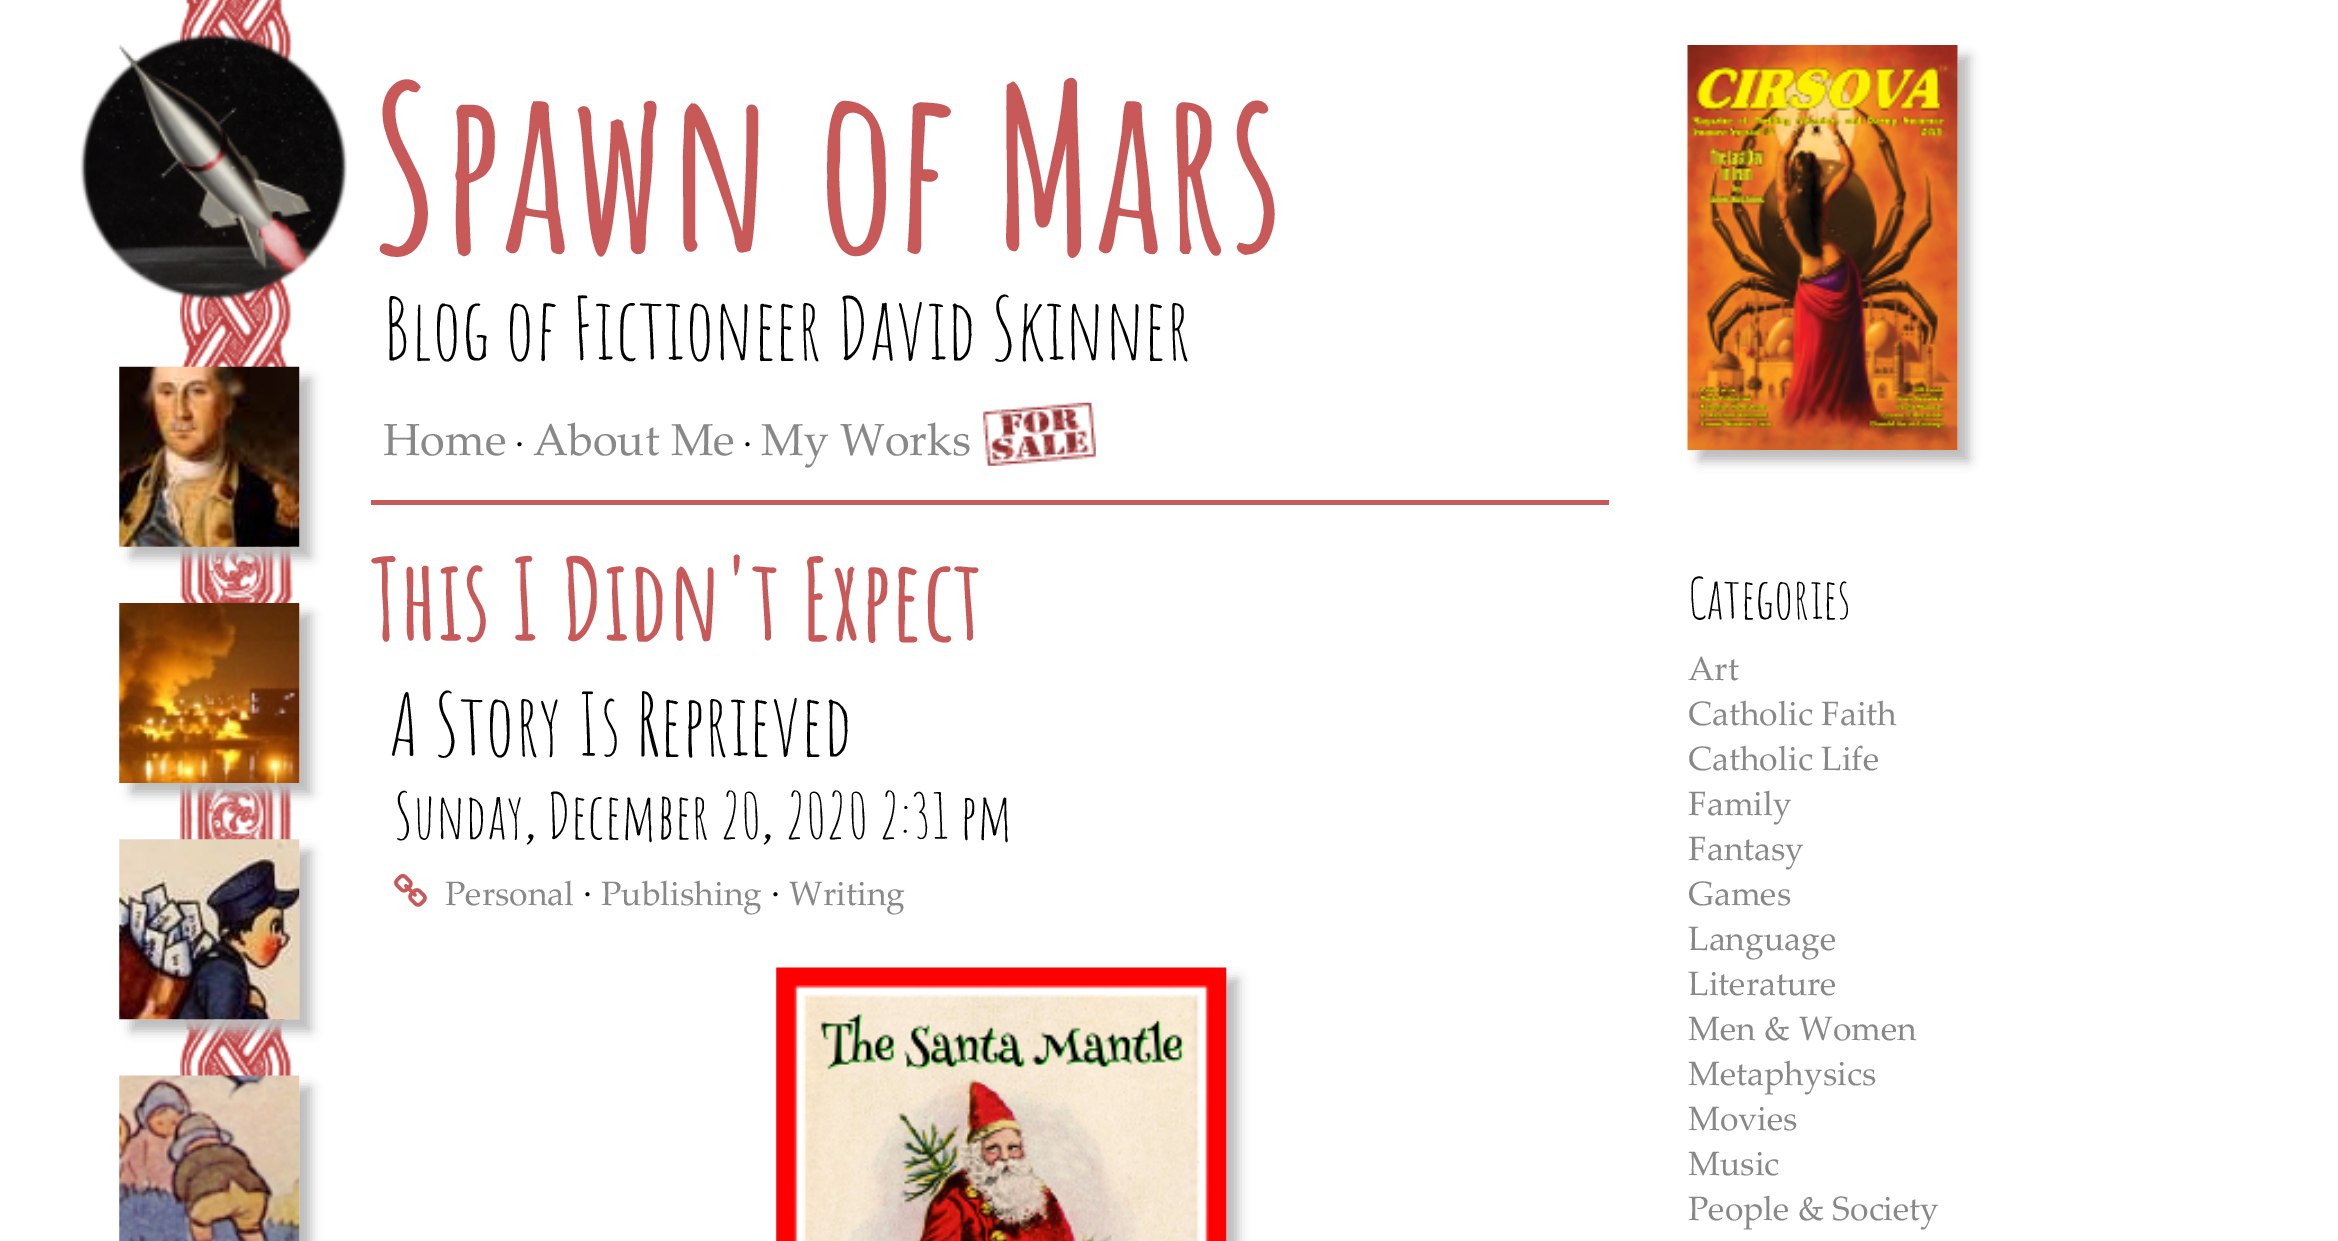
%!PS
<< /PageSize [2338 1241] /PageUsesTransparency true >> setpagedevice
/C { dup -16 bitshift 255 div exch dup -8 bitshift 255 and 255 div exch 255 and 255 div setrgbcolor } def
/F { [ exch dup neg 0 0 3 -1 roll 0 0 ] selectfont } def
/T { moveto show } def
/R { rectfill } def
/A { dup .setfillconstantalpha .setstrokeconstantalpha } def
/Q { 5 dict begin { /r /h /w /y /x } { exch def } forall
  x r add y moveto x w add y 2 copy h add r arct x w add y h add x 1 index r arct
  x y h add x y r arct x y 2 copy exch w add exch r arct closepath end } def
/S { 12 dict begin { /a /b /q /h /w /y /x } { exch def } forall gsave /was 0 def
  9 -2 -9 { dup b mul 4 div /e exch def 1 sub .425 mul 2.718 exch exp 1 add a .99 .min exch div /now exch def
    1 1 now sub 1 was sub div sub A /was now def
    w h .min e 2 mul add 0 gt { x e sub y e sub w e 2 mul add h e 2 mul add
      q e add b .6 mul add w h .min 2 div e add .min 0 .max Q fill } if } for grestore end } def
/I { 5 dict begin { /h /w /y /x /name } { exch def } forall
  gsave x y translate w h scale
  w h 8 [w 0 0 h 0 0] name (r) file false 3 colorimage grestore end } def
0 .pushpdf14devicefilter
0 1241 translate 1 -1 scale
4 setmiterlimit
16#FFFFFF C
0 0 2338 1241 R
(6.rgb) 180 0 113 1076 I
(1.rgb) 80 33 267 268 I
16#BBBBBB C
131 378 180 180 0 5.5 1 S
(2.rgb) 119 366 181 181 I
131 614 180 180 0 5.5 1 S
(3.rgb) 119 603 181 180 I
131 851 180 180 0 5.5 1 S
(4.rgb) 119 839 181 181 I
131 1087 180 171 0 5.5 1 S
(5.rgb) 119 1075 181 166 I
/AmaticSC-Bold 225 F
16#C85959 C
(Spawn of Mars) 371 252 T
/AmaticSC-Regular 85.5 F
16#000000 C
(Blog of Fictioneer David Skinner) 383 360 T
/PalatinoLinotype-Regular 45 F
16#888888 C
(Home) 383 455 T
/PalatinoLinotype-Regular 36 F
16#000000 C
(·) 515 455 T
/PalatinoLinotype-Regular 45 F
16#888888 C
(About Me) 533 455 T
/PalatinoLinotype-Regular 36 F
16#000000 C
(·) 743 455 T
/PalatinoLinotype-Regular 45 F
16#888888 C
(My Works) 761 455 T
(7.rgb) 983 402 113 64 I
16#C85959 C
371 500 1238 5 R
/AmaticSC-Bold 112.5 F
(This I Didn't Expect) 371 641 T
/AmaticSC-Regular 85.5 F
16#000000 C
(A Story Is Reprieved) 389 756 T
/AmaticSC-Regular 63 F
(Sunday, December 20, 2020 2:31 pm) 394 839 T
(8.rgb) 394 874 33 33 I
/PalatinoLinotype-Regular 33.75 F
16#888888 C
(Personal) 445 905 T
/PalatinoLinotype-Regular 36 F
16#000000 C
(·) 583 905 T
/PalatinoLinotype-Regular 33.75 F
16#888888 C
(Publishing) 601 905 T
/PalatinoLinotype-Regular 36 F
16#000000 C
(·) 771 905 T
/PalatinoLinotype-Regular 33.75 F
16#888888 C
(Writing) 789 905 T
16#BBBBBB C
788 979 450 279 0 5.5 1 S
(9.rgb) 776 967 451 274 I
1699 56 270 405 0 5.5 1 S
(10.rgb) 1687 45 271 405 I
/AmaticSC-Regular 56 F
16#000000 C
(Categories) 1688 619 T
/PalatinoLinotype-Regular 33.75 F
16#888888 C
(Art) 1688 680 T
(Catholic Faith) 1688 725 T
(Catholic Life) 1688 770 T
(Family) 1688 815 T
(Fantasy) 1688 860 T
(Games) 1688 905 T
(Language) 1688 950 T
(Literature) 1688 995 T
(Men & Women) 1688 1040 T
(Metaphysics) 1688 1085 T
(Movies) 1688 1130 T
(Music) 1688 1175 T
(People & Society) 1688 1220 T
.poppdf14devicefilter showpage
